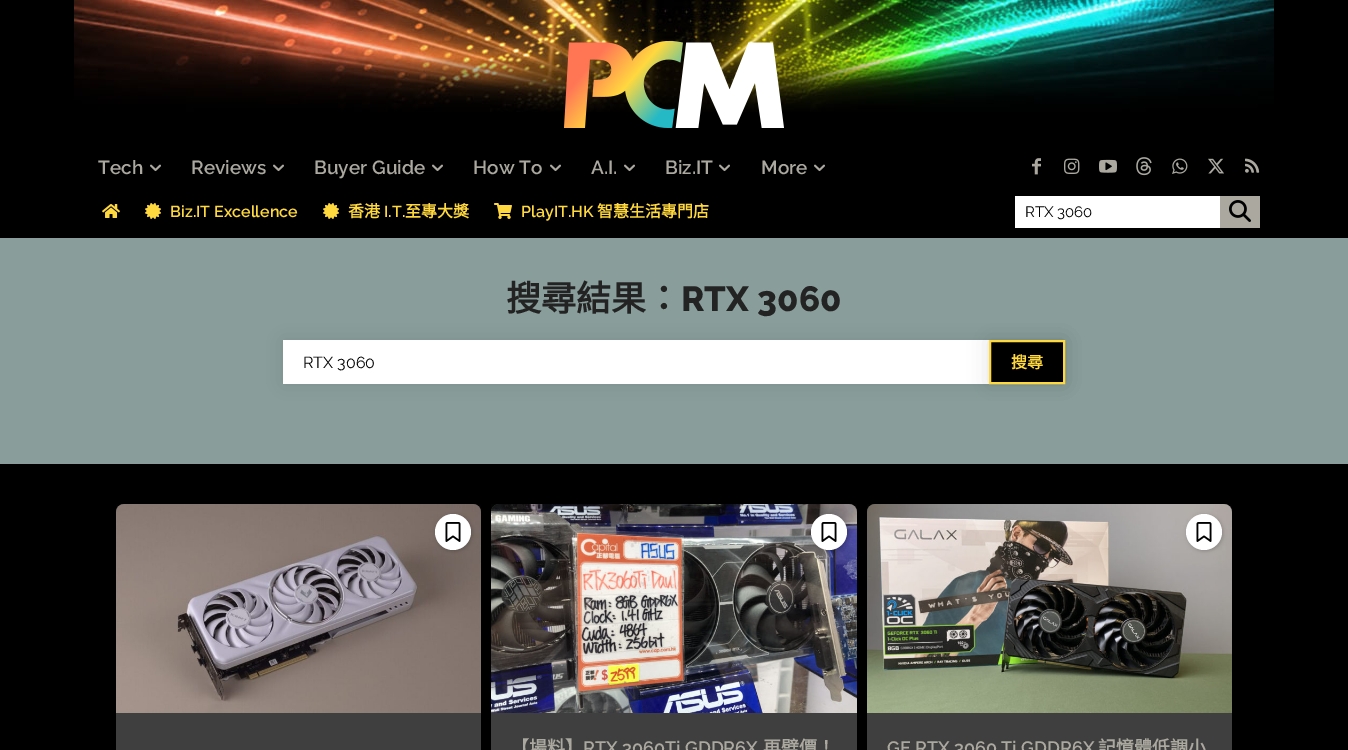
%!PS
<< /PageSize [1348 750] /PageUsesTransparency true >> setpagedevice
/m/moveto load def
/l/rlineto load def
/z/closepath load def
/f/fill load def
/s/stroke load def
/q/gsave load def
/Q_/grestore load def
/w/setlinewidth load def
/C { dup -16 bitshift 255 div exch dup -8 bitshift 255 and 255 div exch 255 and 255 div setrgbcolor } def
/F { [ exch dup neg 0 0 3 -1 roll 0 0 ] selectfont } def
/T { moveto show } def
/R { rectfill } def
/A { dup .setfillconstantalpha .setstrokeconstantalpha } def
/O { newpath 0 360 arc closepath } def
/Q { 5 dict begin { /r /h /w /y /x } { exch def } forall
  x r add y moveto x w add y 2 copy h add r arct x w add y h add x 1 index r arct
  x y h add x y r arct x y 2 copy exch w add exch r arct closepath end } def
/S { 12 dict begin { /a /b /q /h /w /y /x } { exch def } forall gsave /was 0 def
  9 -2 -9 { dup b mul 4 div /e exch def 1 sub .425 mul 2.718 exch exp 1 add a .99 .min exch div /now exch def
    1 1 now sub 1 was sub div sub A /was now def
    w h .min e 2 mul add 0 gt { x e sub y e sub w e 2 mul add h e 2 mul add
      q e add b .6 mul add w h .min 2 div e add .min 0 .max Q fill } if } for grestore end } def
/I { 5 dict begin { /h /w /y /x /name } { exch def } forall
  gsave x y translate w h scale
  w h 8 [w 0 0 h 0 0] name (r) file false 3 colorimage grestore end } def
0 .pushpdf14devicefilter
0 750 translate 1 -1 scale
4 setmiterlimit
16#000000 C
0 0 1348 750 R
(1.rgb) 74 0 1200 112 I
(2.rgb) 564 41 220 87 I
/Raleway-SemiBold 19 F
16#AAA89F C
(Tech) 98 174 T
(3.rgb) 150 164 11 8 I
(Reviews) 191 174 T
(3.rgb) 273 164 11 8 I
(Buyer Guide) 314 174 T
(3.rgb) 432 164 11 8 I
(How To) 473 174 T
(3.rgb) 550 164 11 8 I
(A.I.) 591 174 T
(3.rgb) 624 164 11 8 I
(Biz.IT) 665 174 T
(3.rgb) 719 164 11 8 I
(More) 761 174 T
(3.rgb) 814 164 11 8 I
(4.rgb) 1032 158 9 17 I
(5.rgb) 1064 158 16 16 I
(6.rgb) 1099 159 18 14 I
(7.rgb) 1136 157 16 19 I
(8.rgb) 1172 158 16 16 I
(9.rgb) 1208 158 16 16 I
(10.rgb) 1245 158 15 15 I
(11.rgb) 102 204 18 14 I
(12.rgb) 145 203 16 16 I
/Raleway-SemiBold 16 F
16#FFD83F C
(Biz.IT Excellence) 170 217 T
(12.rgb) 323 203 16 16 I
/NotoSansCJKHK-Bold 16 F
(香港) 348 217 T
/Raleway-SemiBold 16 F
(I.T.) 384 217 T
/NotoSansCJKHK-Bold 16 F
(至專大獎) 405 217 T
(13.rgb) 494 203 18 16 I
/Raleway-SemiBold 16 F
(PlayIT.HK) 521 217 T
/NotoSansCJKHK-Bold 16 F
(智慧生活專門店) 597 217 T
16#FFFFFF C
1015 196 205 32 R
/Raleway-Regular 15 F
16#000000 C
(RTX 3060) 1025 217 T
16#AAA89F C
1220 196 40 32 R
(14.rgb) 1229 200 22 22 I
16#899E9B C
0 238 1348 226 R
/NotoSansCJKHK-Bold 35 F
16#232323 C
(搜尋結果：) 506 311 T
/Raleway-ExtraBold 35 F
(RTX 3060) 681 311 T
16#2E3837 C
283 340 782 44 0 10 .15 S
16#FFFFFF C
283 340 706 44 R
/Raleway-Regular 16 F
16#000000 C
(RTX 3060) 303 368 T
16#2E3837 C
989 340 76 44 0 10 .15 S
16#000000 C
990 341 m 74 0 l 0 42 l -74 0 l z q f Q_
16#FFD83F C
2 w
s
/NotoSansCJKHK-Bold 16 F
(搜尋) 1011 368 T
16#3F3F3F C
116 504 365 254 8 Q f
(15.rgb) 116 504 365 209 I
16#000000 C
436 515 36 36 18 2 .2 S
16#FFFFFF C
453 532 18 O f
(16.rgb) 445 522 16 20 I
16#3F3F3F C
491 504 366 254 8 Q f
(17.rgb) 491 504 366 209 I
16#000000 C
812 515 36 36 18 2 .2 S
16#FFFFFF C
829 532 18 O f
(16.rgb) 821 522 16 20 I
/NotoSansCJKHK-Bold 18 F
16#AAA89F C
(【場料】) 511 754 T
/Raleway-SemiBold 18 F
(RTX 3060Ti GDDR6X) 583 754 T
/NotoSansCJKHK-Bold 18 F
(再劈價！) 763 754 T
16#3F3F3F C
867 504 365 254 8 Q f
(18.rgb) 867 504 365 209 I
16#000000 C
1187 515 36 36 18 2 .2 S
16#FFFFFF C
1204 532 18 O f
(16.rgb) 1196 522 16 20 I
/Raleway-SemiBold 18 F
16#AAA89F C
(GF RTX 3060 Ti GDDR6X) 887 754 T
/NotoSansCJKHK-Bold 18 F
(記憶體低調小) 1098 754 T
.poppdf14devicefilter showpage
